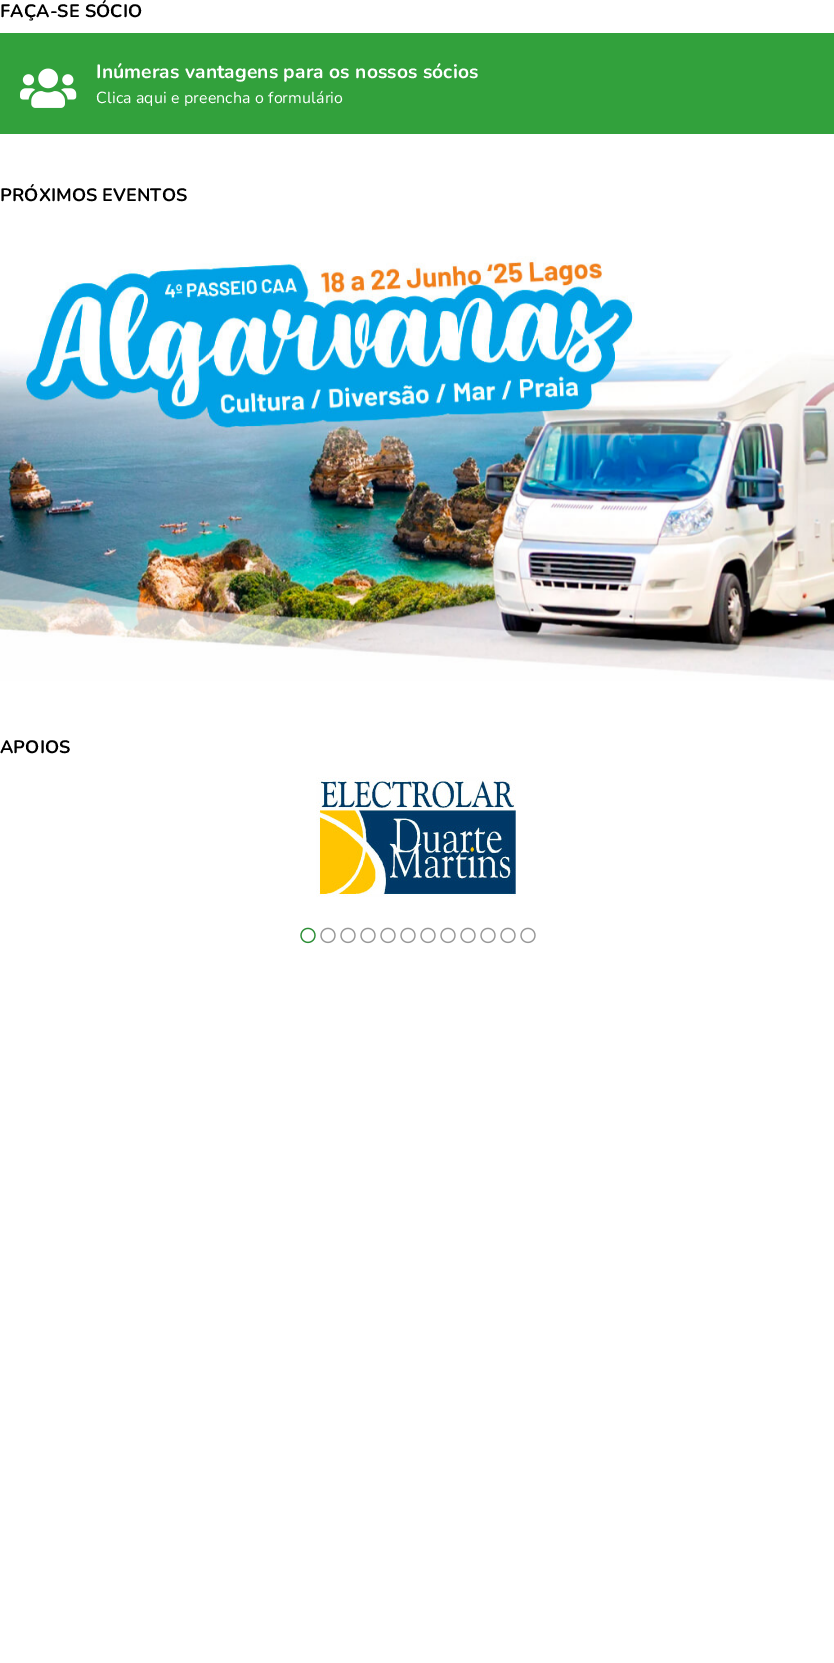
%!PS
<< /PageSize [834 1663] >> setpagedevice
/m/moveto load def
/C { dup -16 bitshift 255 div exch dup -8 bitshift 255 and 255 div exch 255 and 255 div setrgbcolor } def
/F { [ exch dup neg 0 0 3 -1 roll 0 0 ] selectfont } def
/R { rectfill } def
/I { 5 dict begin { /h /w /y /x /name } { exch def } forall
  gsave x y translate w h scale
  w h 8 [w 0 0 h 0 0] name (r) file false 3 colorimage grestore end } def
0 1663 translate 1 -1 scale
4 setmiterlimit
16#FFFFFF C
0 0 834 1663 R
/Nunito-Bold 18 F
16#000000 C
0 17 m .1 0 (FAÇA-SE SÓCIO) ashow
16#32A13C C
0 33 834 101 R
(1.rgb) 20 68 57 40 I
/Nunito-Bold 19.25 F
16#FFFFFF C
96 78 m .1 0 (Inúmeras vantagens para os nossos sócios) ashow
/Nunito-Regular 16 F
96 103 m .1 0 (Clica aqui e preencha o formulário) ashow
/Nunito-Bold 18 F
16#000000 C
0 201 m .1 0 (PRÓXIMOS EVENTOS) ashow
(2.rgb) 0 256 834 425 I
0 753 m .1 0 (APOIOS) ashow
(3.rgb) 316 777 200 120 I
(4.rgb) 300 927 16 17 I
(5.rgb) 320 927 16 17 I
(5.rgb) 340 927 16 17 I
(5.rgb) 360 927 16 17 I
(5.rgb) 380 927 16 17 I
(5.rgb) 400 927 16 17 I
(5.rgb) 420 927 16 17 I
(5.rgb) 440 927 16 17 I
(5.rgb) 460 927 16 17 I
(5.rgb) 480 927 16 17 I
(5.rgb) 500 927 16 17 I
(5.rgb) 520 927 16 17 I
showpage
